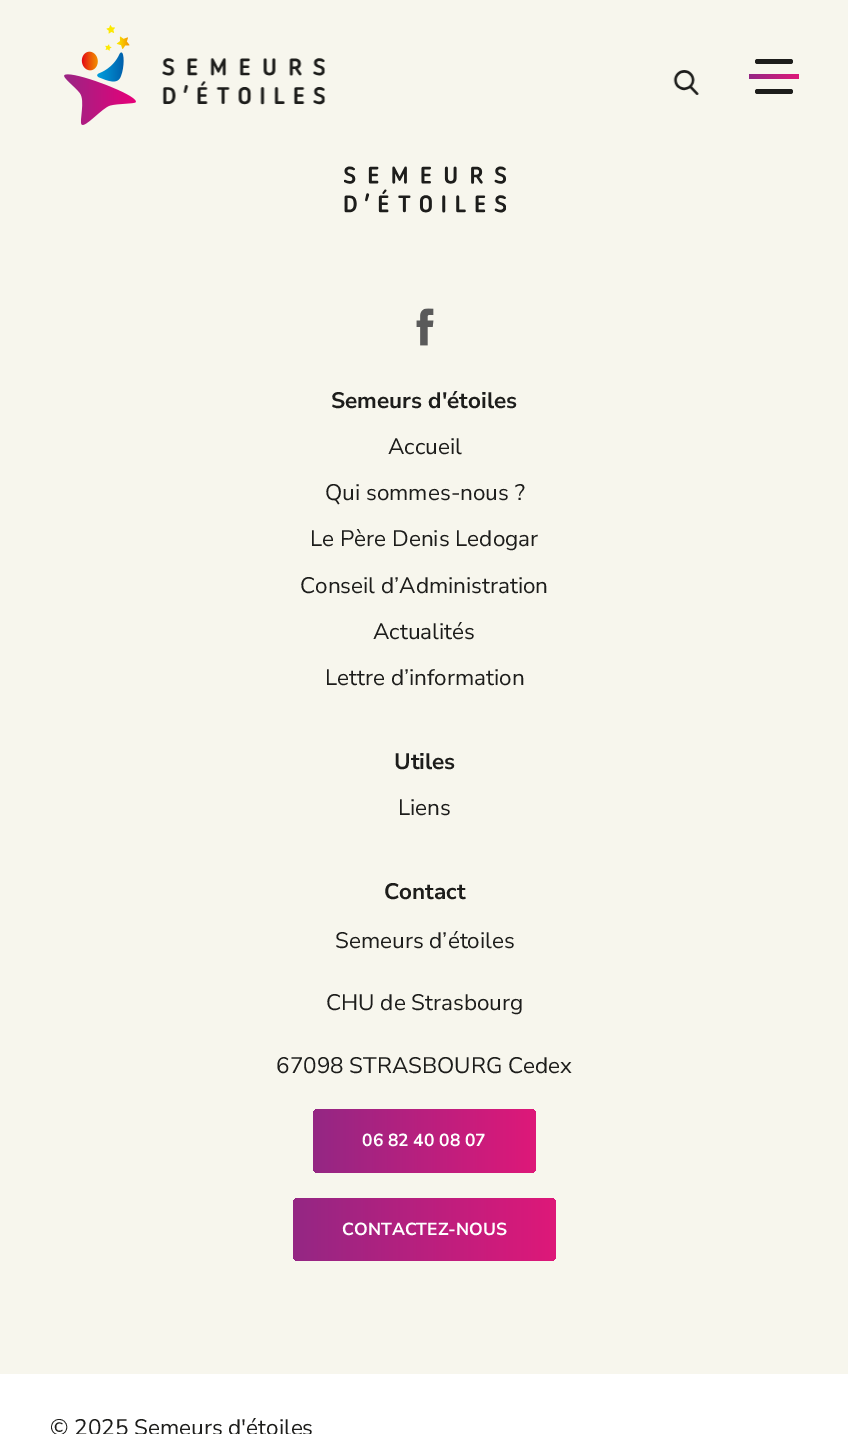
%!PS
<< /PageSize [848 1434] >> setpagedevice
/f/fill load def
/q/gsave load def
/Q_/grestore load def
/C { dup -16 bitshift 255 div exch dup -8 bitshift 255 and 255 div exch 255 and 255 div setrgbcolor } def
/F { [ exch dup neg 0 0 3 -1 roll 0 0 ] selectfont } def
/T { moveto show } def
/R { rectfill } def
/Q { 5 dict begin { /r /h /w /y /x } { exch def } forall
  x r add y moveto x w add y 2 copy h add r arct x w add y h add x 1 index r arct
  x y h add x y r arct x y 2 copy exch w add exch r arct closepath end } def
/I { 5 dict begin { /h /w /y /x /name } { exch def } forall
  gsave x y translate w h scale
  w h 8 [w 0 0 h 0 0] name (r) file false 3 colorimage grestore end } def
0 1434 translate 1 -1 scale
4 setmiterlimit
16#F7F6ED C
0 0 848 1434 R
(1.rgb) 64 25 72 100 I
(2.rgb) 162 58 164 47 I
(3.rgb) 673 70 26 25 I
16#1D1D1B C
755 59 38 5 2.5 Q f
q 749 74 50 5 2.5 Q clip newpath
<< /ShadingType 2 /ColorSpace /DeviceRGB /Coords [799 76 749 76] /Extend [true true] /Function << /FunctionType 2 /Domain [0 1] /C0 [.871 .094 .475] /C1 [.58 .153 .518] /N 1 >> >> shfill Q_
755 89 38 5 2.5 Q f
(4.rgb) 344 166 162 47 I
(5.rgb) 416 308 18 38 I
/NunitoSans-Bold 22.5 F
(Semeurs d'étoiles) 331 408 T
/NunitoSans-Regular 22.5 F
(Accueil) 388 454 T
(Qui sommes-nous ?) 325 500 T
(Le Père Denis Ledogar) 310 546 T
(Conseil d’Administration) 300 593 T
(Actualités) 373 639 T
(Lettre d’information) 325 685 T
/NunitoSans-Bold 22.5 F
(Utiles) 394 769 T
/NunitoSans-Regular 22.5 F
(Liens) 398 815 T
/NunitoSans-Bold 22.5 F
(Contact) 384 899 T
/NunitoSans-Regular 22.5 F
(Semeurs d’étoiles) 335 948 T
(CHU de Strasbourg) 326 1010 T
(67098 STRASBOURG Cedex) 276 1073 T
q 313 1109 223 64 6 Q clip newpath
<< /ShadingType 2 /ColorSpace /DeviceRGB /Coords [536 1141 313 1141] /Extend [true true] /Function << /FunctionType 2 /Domain [0 1] /C0 [.871 .094 .475] /C1 [.58 .153 .518] /N 1 >> >> shfill Q_
/NunitoSans-Bold 17.5 F
16#FFFFFF C
(06 82 40 08 07) 362 1146 T
q 293 1198 263 63 6 Q clip newpath
<< /ShadingType 2 /ColorSpace /DeviceRGB /Coords [556 1229 293 1229] /Extend [true true] /Function << /FunctionType 2 /Domain [0 1] /C0 [.871 .094 .475] /C1 [.58 .153 .518] /N 1 >> >> shfill Q_
(CONTACTEZ-NOUS) 342 1235 T
0 1374 848 60 R
/NunitoSans-Regular 22.5 F
16#1D1D1B C
(© 2025 Semeurs d'étoiles) 50 1435 T
showpage
